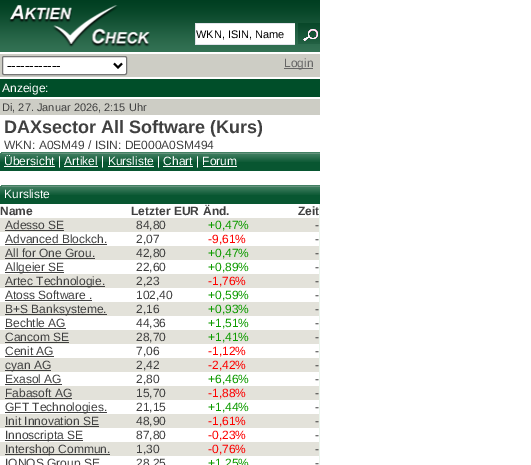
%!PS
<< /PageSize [531 465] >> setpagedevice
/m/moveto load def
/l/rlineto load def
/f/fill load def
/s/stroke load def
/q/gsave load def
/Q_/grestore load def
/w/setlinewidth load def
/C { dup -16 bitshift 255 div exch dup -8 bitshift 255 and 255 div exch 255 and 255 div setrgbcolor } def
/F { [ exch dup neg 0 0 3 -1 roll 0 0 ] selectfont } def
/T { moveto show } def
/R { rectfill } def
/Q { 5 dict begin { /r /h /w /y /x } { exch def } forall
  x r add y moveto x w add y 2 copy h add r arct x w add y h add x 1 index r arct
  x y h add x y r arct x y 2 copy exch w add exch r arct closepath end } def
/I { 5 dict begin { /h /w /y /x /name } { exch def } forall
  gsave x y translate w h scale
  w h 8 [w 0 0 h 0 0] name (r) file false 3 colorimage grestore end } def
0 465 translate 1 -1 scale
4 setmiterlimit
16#FFFFFF C
0 0 531 465 R
(1.rgb) 0 0 320 52 I
(2.rgb) 9 5 141 42 I
196 24 99 20 R
16#E2E3EA C
195 23 100 1 R
195 44 100 1 R
195 23 1 22 R
/LiberationSans-Regular 11 F
16#000000 C
(WKN, ISIN, Name) 196 38 T
(3.rgb) 298 23 22 21 I
16#CDCDC5 C
0 54 320 23 R
16#FFFFFF C
2.5 56.5 124 18 1.5 Q q f Q_
16#767676 C
s
16#000000 C
2 w
114 63.5 m 4 4 l 4 -4 l s
/LiberationSans-Regular 13.5 F
(------------) 7 70 T
16#666666 C
284 68 29 1 R
/LiberationSans-Regular 12 F
(Login) 284 67 T
16#004E29 C
0 79 320 18 R
16#FFFFFF C
(Anzeige:) 2 92 T
16#CDCDC5 C
0 99 320 16 R
/LiberationSans-Regular 11 F
16#404040 C
(Di, 27. Januar 2026, 2:15 Uhr) 2 111 T
/LiberationSans-Bold 18 F
(DAXsector All Software \(Kurs\)) 4 133 T
/LiberationSans-Regular 12 F
(WKN: A0SM49 / ISIN: DE000A0SM494) 4 149 T
16#085631 C
0 162 320 9 R
(4.rgb) 0 152 320 10 I
16#FFFFFF C
4 166 51 1 R
(Übersicht | Artikel | Kursliste | Chart | Forum) 4 165 T
64 166 34 1 R
108 166 46 1 R
163 166 30 1 R
203 166 34 1 R
16#085631 C
0 195 320 9 R
(4.rgb) 0 185 320 10 I
16#FFFFFF C
(Kursliste) 4 198 T
16#EBF5ED C
319 204 1 261 R
/LiberationSans-Bold 12 F
16#404040 C
(Name) 0 215 T
(Letzter EUR) 131 215 T
(Änd.) 203 215 T
(Zeit) 298 215 T
16#E3E2DA C
0 218 319 14 R
/LiberationSans-Regular 12 F
16#404040 C
(Adesso SE) 5 229 T
5 230 59 1 R
(84,80) 136 229 T
16#0E9B00 C
(+0,47%) 208 229 T
16#404040 C
(-) 315 229 T
(Advanced Blockch.) 5 243 T
5 244 102 1 R
(2,07) 136 243 T
16#FD0100 C
(-9,61%) 208 243 T
16#404040 C
(-) 315 243 T
16#E3E2DA C
0 246 319 14 R
16#404040 C
(All for One Grou.) 5 257 T
5 258 90 1 R
(42,80) 136 257 T
16#0E9B00 C
(+0,47%) 208 257 T
16#404040 C
(-) 315 257 T
5 272 59 1 R
(Allgeier SE) 5 271 T
(22,60) 136 271 T
16#0E9B00 C
(+0,89%) 208 271 T
16#404040 C
(-) 315 271 T
16#E3E2DA C
0 274 319 14 R
16#404040 C
5 286 100 1 R
(Artec Technologie.) 5 285 T
(2,23) 136 285 T
16#FD0100 C
(-1,76%) 208 285 T
16#404040 C
(-) 315 285 T
(Atoss Software .) 5 299 T
5 300 87 1 R
(102,40) 136 299 T
16#0E9B00 C
(+0,59%) 208 299 T
16#404040 C
(-) 315 299 T
16#E3E2DA C
0 302 319 14 R
16#404040 C
5 314 102 1 R
(B+S Banksysteme.) 5 313 T
(2,16) 136 313 T
16#0E9B00 C
(+0,93%) 208 313 T
16#404040 C
(-) 315 313 T
(Bechtle AG) 5 327 T
5 328 61 1 R
(44,36) 136 327 T
16#0E9B00 C
(+1,51%) 208 327 T
16#404040 C
(-) 315 327 T
16#E3E2DA C
0 330 319 14 R
16#404040 C
(Cancom SE) 5 341 T
5 342 64 1 R
(28,70) 136 341 T
16#0E9B00 C
(+1,41%) 208 341 T
16#404040 C
(-) 315 341 T
(Cenit AG) 5 355 T
5 356 49 1 R
(7,06) 136 355 T
16#FD0100 C
(-1,12%) 208 355 T
16#404040 C
(-) 315 355 T
16#E3E2DA C
0 358 319 14 R
16#404040 C
5 370 46 1 R
(cyan AG) 5 369 T
(2,42) 136 369 T
16#FD0100 C
(-2,42%) 208 369 T
16#404040 C
(-) 315 369 T
(Exasol AG) 5 383 T
5 384 57 1 R
(2,80) 136 383 T
16#0E9B00 C
(+6,46%) 208 383 T
16#404040 C
(-) 315 383 T
16#E3E2DA C
0 386 319 14 R
16#404040 C
(Fabasoft AG) 5 397 T
5 398 67 1 R
(15,70) 136 397 T
16#FD0100 C
(-1,88%) 208 397 T
16#404040 C
(-) 315 397 T
5 412 102 1 R
(GFT Technologies.) 5 411 T
(21,15) 136 411 T
16#0E9B00 C
(+1,44%) 208 411 T
16#404040 C
(-) 315 411 T
16#E3E2DA C
0 414 319 14 R
16#404040 C
(Init Innovation SE) 5 425 T
5 426 94 1 R
(48,90) 136 425 T
16#FD0100 C
(-1,61%) 208 425 T
16#404040 C
(-) 315 425 T
5 440 78 1 R
(Innoscripta SE) 5 439 T
(87,80) 136 439 T
16#FD0100 C
(-0,23%) 208 439 T
16#404040 C
(-) 315 439 T
16#E3E2DA C
0 442 319 14 R
16#404040 C
5 454 105 1 R
(Intershop Commun.) 5 453 T
(1,30) 136 453 T
16#FD0100 C
(-0,76%) 208 453 T
16#404040 C
(-) 315 453 T
(IONOS Group SE) 5 467 T
(28,25) 136 467 T
16#0E9B00 C
(+1,25%) 208 467 T
16#404040 C
(-) 315 467 T
showpage
